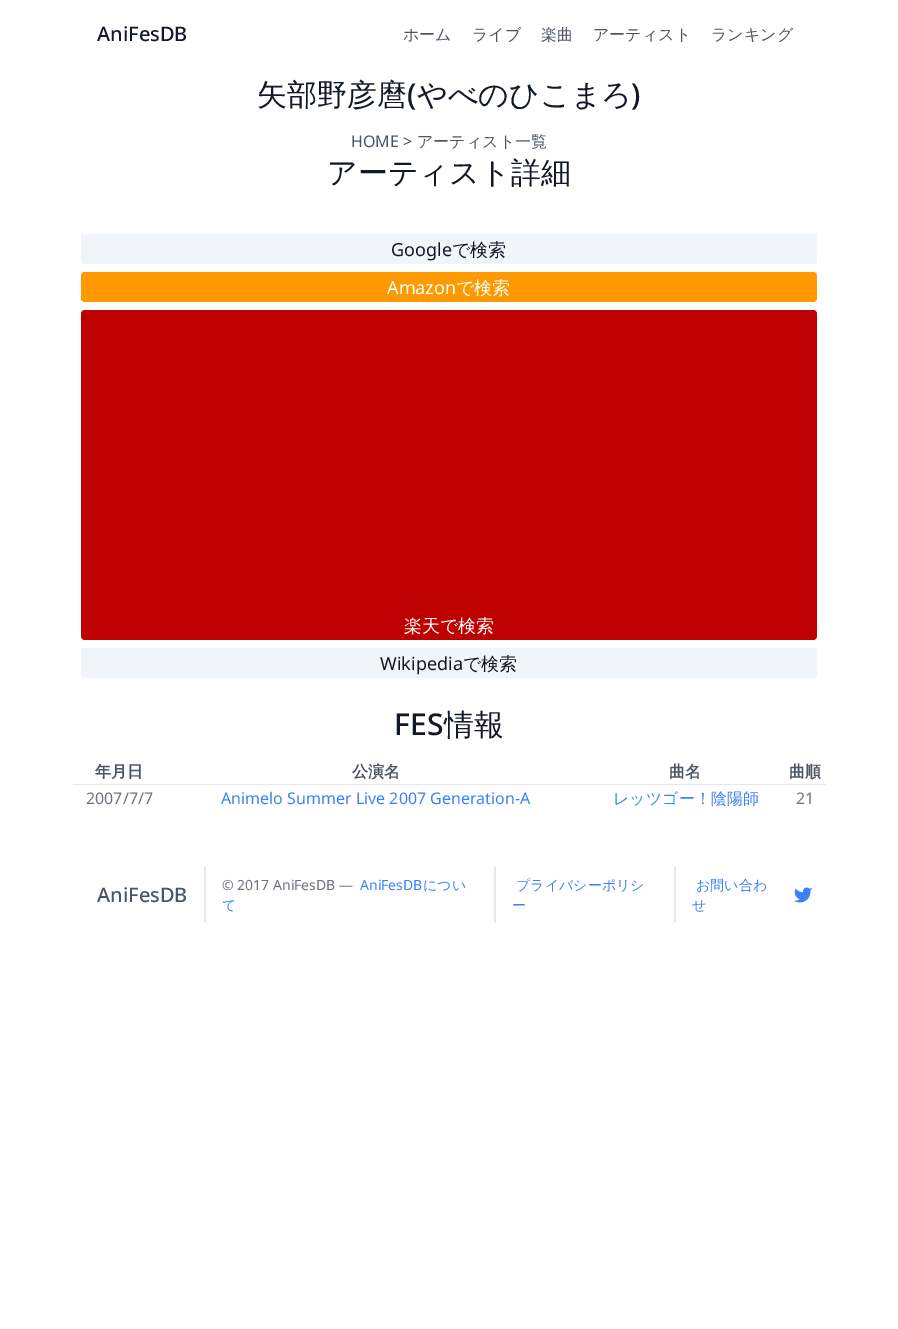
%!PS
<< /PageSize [898 1329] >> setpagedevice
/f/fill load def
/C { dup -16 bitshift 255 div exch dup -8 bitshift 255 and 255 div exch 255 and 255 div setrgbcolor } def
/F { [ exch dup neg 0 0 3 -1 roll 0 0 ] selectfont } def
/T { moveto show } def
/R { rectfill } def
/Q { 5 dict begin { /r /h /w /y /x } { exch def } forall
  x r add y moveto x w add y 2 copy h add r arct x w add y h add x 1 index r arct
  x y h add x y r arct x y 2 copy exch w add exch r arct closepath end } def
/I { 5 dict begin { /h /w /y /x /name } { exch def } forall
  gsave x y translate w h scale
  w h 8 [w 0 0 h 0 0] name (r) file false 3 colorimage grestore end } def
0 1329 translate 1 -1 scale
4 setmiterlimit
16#FFFFFF C
0 0 898 1329 R
/NotoSans-Medium 20 F
16#111827 C
(AniFesDB) 97 41 T
/WenQuanYiZenHei-Medium 16 F
16#4B5563 C
(ホーム) 403 40 T
(ライブ) 472 40 T
(楽曲) 541 40 T
(アーティスト) 593 40 T
(ランキング) 711 40 T
/WenQuanYiZenHei-Medium 30 F
16#111827 C
(矢部野彦麿) 257 105 T
/NotoSans-Medium 30 F
(\() 407 105 T
/WenQuanYiZenHei-Medium 30 F
(やべのひこまろ) 417 105 T
/NotoSans-Medium 30 F
(\)) 631 105 T
/NotoSans-Regular 16 F
16#4B5563 C
(HOME >) 351 147 T
/WenQuanYiZenHei-Medium 16 F
(アーティスト一覧) 417 147 T
/WenQuanYiZenHei-Medium 30 F
16#111827 C
(アーティスト詳細) 327 183 T
16#E5E7EB C
81 234 736 1 R
16#F1F5F9 C
81 234 736 30 4 Q f
/NotoSans-Regular 18 F
16#111827 C
(Google) 391 256 T
/WenQuanYiZenHei-Medium 18 F
(で検索) 452 256 T
16#E5E7EB C
81 272 736 1 R
16#FF9900 C
81 272 736 30 4 Q f
/NotoSans-Regular 18 F
16#FFFFFF C
(Amazon) 387 294 T
/WenQuanYiZenHei-Medium 18 F
(で検索) 456 294 T
16#E5E7EB C
81 310 736 1 R
16#BF0000 C
81 310 736 330 4 Q f
16#FFFFFF C
(楽天で検索) 404 632 T
16#E5E7EB C
81 648 736 1 R
16#F1F5F9 C
81 648 736 30 4 Q f
/NotoSans-Regular 18 F
16#111827 C
(Wikipedia) 380 670 T
/WenQuanYiZenHei-Medium 18 F
(で検索) 463 670 T
/NotoSans-Medium 30 F
(FES) 394 735 T
/WenQuanYiZenHei-Medium 30 F
(情報) 444 735 T
/WenQuanYiZenHei-Bold 16 F
16#4B5563 C
(年月日) 95 777 T
(公演名) 352 777 T
(曲名) 669 777 T
(曲順) 789 777 T
16#E5E7EB C
73 784 753 1 R
/NotoSans-Regular 16 F
16#6B7280 C
(2007/7/7) 86 804 T
16#3B82F6 C
(Animelo Summer Live 2007 Generation-A) 221 804 T
/WenQuanYiZenHei-Medium 16 F
(レッツゴー！陰陽師) 613 804 T
/NotoSans-Regular 16 F
16#6B7280 C
(21) 796 804 T
/NotoSans-Medium 20 F
16#4B5563 C
(AniFesDB) 97 902 T
16#E5E7EB C
204 867 2 56 R
/NotoSans-Regular 14 F
16#6B7280 C
(© 2017 AniFesDB —) 222 890 T
16#3B82F6 C
(AniFesDB) 360 890 T
/WenQuanYiZenHei-Medium 14 F
(につい) 423 890 T
(て) 222 910 T
16#E5E7EB C
494 867 2 56 R
16#3B82F6 C
(プライバシーポリシ) 516 890 T
(ー) 512 910 T
16#E5E7EB C
674 867 2 56 R
16#3B82F6 C
(お問い合わ) 696 890 T
(せ) 692 910 T
(1.rgb) 794 887 19 16 I
showpage
